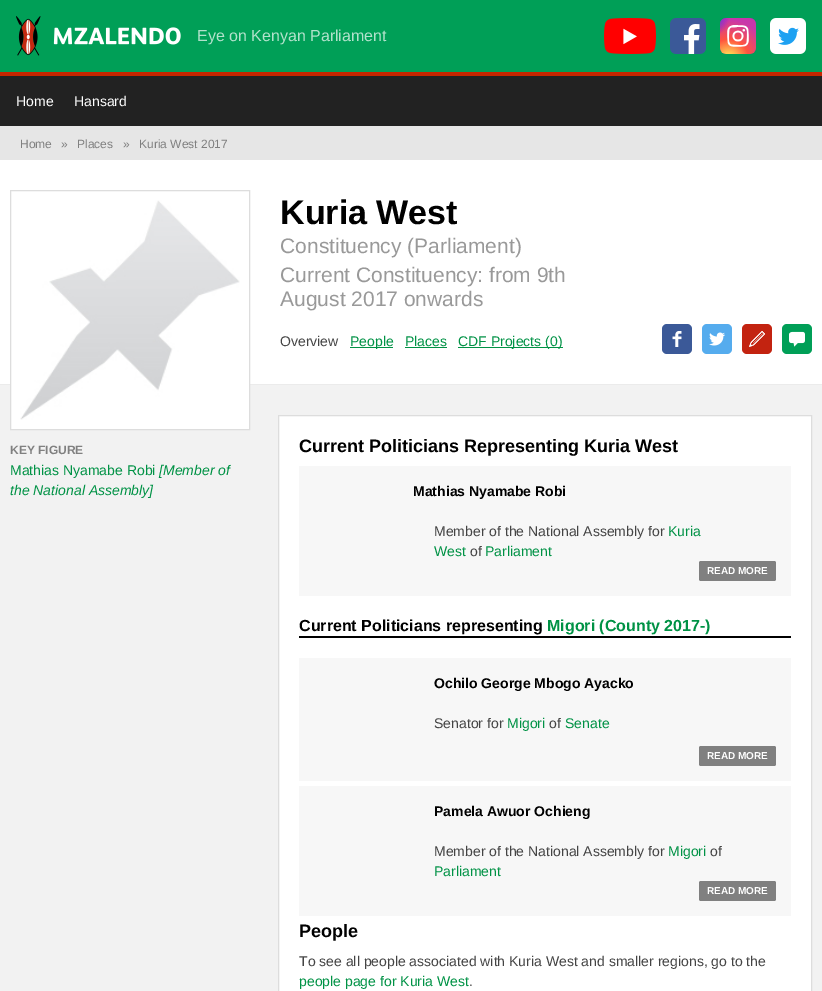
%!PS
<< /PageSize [822 991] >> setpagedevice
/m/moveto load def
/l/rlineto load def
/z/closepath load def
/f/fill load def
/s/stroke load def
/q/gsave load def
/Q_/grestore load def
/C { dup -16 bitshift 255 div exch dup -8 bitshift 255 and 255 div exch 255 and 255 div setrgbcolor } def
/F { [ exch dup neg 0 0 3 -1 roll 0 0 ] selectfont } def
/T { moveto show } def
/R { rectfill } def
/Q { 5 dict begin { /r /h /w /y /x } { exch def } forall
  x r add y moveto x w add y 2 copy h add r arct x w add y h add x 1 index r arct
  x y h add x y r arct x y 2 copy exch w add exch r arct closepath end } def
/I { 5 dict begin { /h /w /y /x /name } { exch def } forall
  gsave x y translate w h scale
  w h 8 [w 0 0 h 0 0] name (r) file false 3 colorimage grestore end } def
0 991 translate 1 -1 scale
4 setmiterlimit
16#009F57 C
0 0 822 991 R
(1.rgb) 16 16 165 40 I
/LiberationSans-Regular 16 F
16#B2E2CC C
(Eye on Kenyan Parliament) 197 41 T
(2.rgb) 604 18 52 36 I
(3.rgb) 670 18 36 36 I
(4.rgb) 720 18 36 36 I
(5.rgb) 770 18 36 36 I
16#222222 C
0 76 822 50 R
16#C52600 C
0 72 822 4 R
/LiberationSans-Regular 14 F
16#FFFFFF C
(Home) 16 106 T
(Hansard) 74 106 T
16#E6E6E6 C
0 126 822 34 R
/LiberationSans-Regular 12 F
16#808080 C
(Home) 20 148 T
(») 61 148 T
(Places) 77 148 T
(») 123 148 T
(Kuria West 2017) 139 148 T
16#FFFFFF C
0 160 822 224 R
/LiberationSans-Bold 34 F
16#000000 C
(Kuria West) 280 224 T
/LiberationSans-Regular 21 F
16#999999 C
(Constituency \(Parliament\)) 280 253 T
(Current Constituency: from 9th) 280 282 T
(August 2017 onwards) 280 306 T
/LiberationSans-Regular 14 F
16#444444 C
(Overview) 280 346 T
16#009245 C
350 347 43 1 R
(People) 350 346 T
(Places) 405 346 T
405 347 42 1 R
458 347 105 1 R
(CDF Projects \(0\)) 458 346 T
16#3B5998 C
662 324 30 30 5 Q f
(6.rgb) 672 331 10 16 I
16#55ACEE C
702 324 30 30 5 Q f
(7.rgb) 709 332 16 14 I
16#C32310 C
742 324 30 30 5 Q f
(8.rgb) 749 331 16 16 I
16#009F57 C
782 324 30 30 5 Q f
(9.rgb) 789 331 16 16 I
16#F2F2F2 C
0 385 822 606 R
16#EBEBEB C
0 384 822 1 R
16#FFFFFF C
11 384 238 45 R
16#DDDDDD C
10.5 190.5 239 239 rectstroke
(10.rgb) 20 200 220 220 I
/LiberationSans-Bold 12 F
16#808080 C
(KEY FIGURE) 10 454 T
/LiberationSans-Regular 14 F
16#009245 C
(Mathias Nyamabe Robi) 10 475 T
/LiberationSans-Italic 14 F
([Member of) 159 475 T
(the National Assembly]) 10 495 T
16#FFFFFF C
278.5 415.5 m 533 0 l 0 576 l -533 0 l z q f Q_
16#DDDDDD C
s
/LiberationSans-Bold 18 F
16#000000 C
(Current Politicians Representing Kuria West) 299 452 T
16#F7F7F7 C
299 466 492 130 R
/LiberationSans-Bold 14 F
16#000000 C
(Mathias Nyamabe Robi) 413 496 T
/LiberationSans-Regular 14 F
16#444444 C
(Member of the National Assembly for) 434 536 T
16#009245 C
(Kuria) 668 536 T
(West) 434 556 T
16#444444 C
(of) 470 556 T
16#009245 C
(Parliament) 485 556 T
16#808080 C
699 561 77 20 2 Q f
/LiberationSans-Bold 10 F
16#FFFFFF C
(READ MORE) 707 574 T
16#000000 C
299 636 492 2 R
/LiberationSans-Bold 16 F
(Current Politicians representing) 299 631 T
16#009245 C
(Migori \(County 2017-\)) 547 631 T
16#F7F7F7 C
299 658 492 123 R
/LiberationSans-Bold 14 F
16#000000 C
(Ochilo George Mbogo Ayacko) 434 688 T
/LiberationSans-Regular 14 F
16#444444 C
(Senator for) 434 728 T
16#009245 C
(Migori) 507 728 T
16#444444 C
(of) 549 728 T
16#009245 C
(Senate) 565 728 T
16#808080 C
699 746 77 20 2 Q f
/LiberationSans-Bold 10 F
16#FFFFFF C
(READ MORE) 707 759 T
16#F7F7F7 C
299 786 492 130 R
/LiberationSans-Bold 14 F
16#000000 C
(Pamela Awuor Ochieng) 434 816 T
/LiberationSans-Regular 14 F
16#444444 C
(Member of the National Assembly for) 434 856 T
16#009245 C
(Migori) 668 856 T
16#444444 C
(of) 710 856 T
16#009245 C
(Parliament) 434 876 T
16#808080 C
699 881 77 20 2 Q f
/LiberationSans-Bold 10 F
16#FFFFFF C
(READ MORE) 707 894 T
/LiberationSans-Bold 18 F
16#000000 C
(People) 299 937 T
/LiberationSans-Regular 14 F
16#444444 C
(To see all people associated with Kuria West and smaller regions, go to the) 299 966 T
16#009245 C
(people page for Kuria West) 299 986 T
16#444444 C
(.) 469 986 T
showpage
